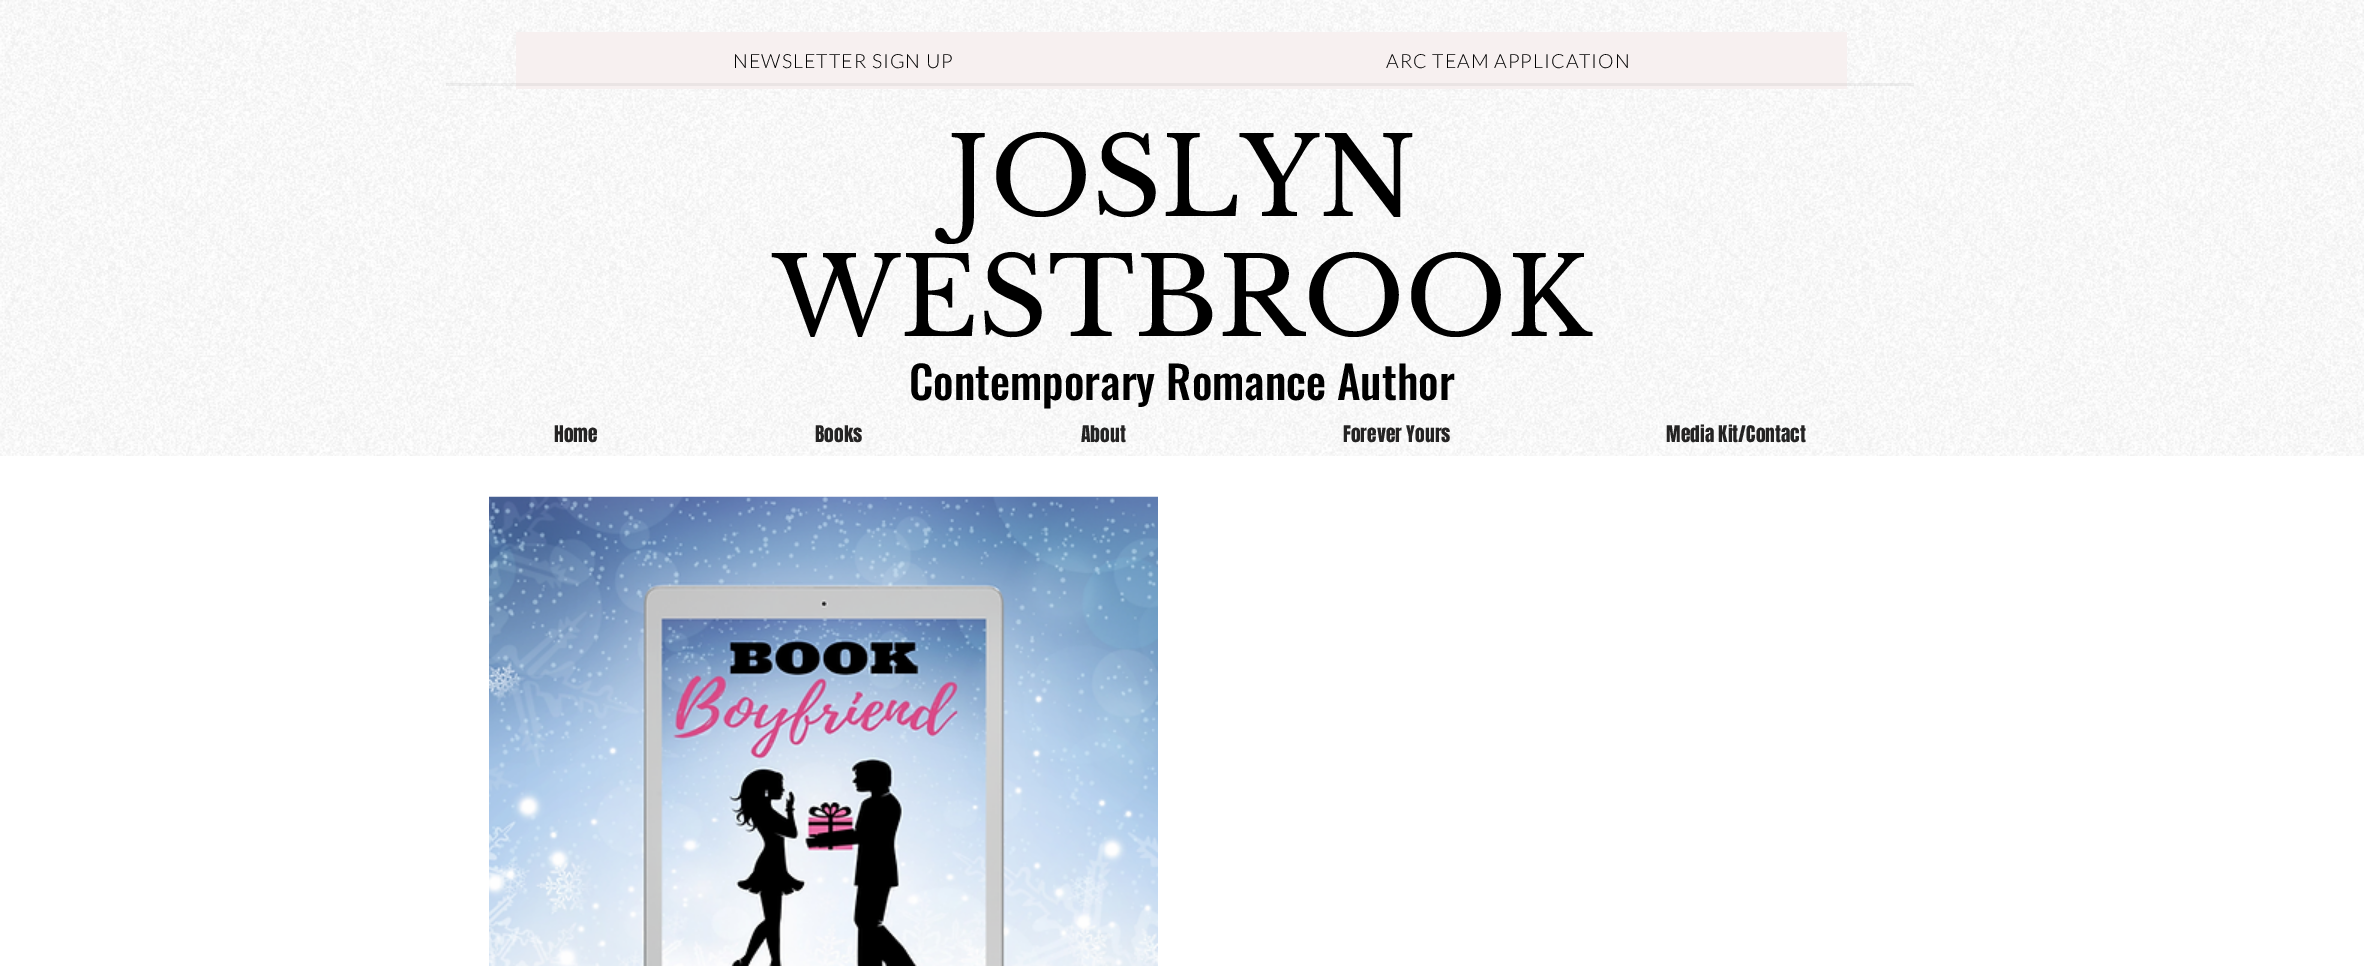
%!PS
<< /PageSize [2364 966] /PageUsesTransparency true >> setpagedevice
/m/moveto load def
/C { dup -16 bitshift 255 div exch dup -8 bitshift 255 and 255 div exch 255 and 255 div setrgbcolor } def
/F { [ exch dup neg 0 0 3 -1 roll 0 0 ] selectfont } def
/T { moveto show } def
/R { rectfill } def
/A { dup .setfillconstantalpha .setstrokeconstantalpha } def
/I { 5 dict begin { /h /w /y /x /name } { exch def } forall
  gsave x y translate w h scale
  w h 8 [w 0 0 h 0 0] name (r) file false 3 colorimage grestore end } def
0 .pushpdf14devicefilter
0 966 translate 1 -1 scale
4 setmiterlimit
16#FFFFFF C
0 0 2364 966 R
(1.rgb) 0 0 2364 456 I
16#F7F0F0 C
516 32 1331 57 R
/Lato-Light 19.5 F
16#000000 C
733 68 m 1 0 (NEWSLETTER SIGN UP) ashow
1386 68 m 1 0 (ARC TEAM APPLICATION) ashow
0.08 A
16#555555 C
446 83 1468 3 R
/LibreBaskerville-Regular 108 F
1 A
16#000000 C
(JOSLYN) 947 216 T
(WESTBROOK) 773 336 T
/Oswald-Medium 45 F
(Contemporary Romance Author) 909 400 T
/Anton-Regular 19.5 F
16#242323 C
(Home) 554 442 T
(Books) 815 442 T
(About) 1081 442 T
(Forever Yours) 1343 442 T
(Media Kit/Contact) 1666 442 T
(2.rgb) 489 496 669 470 I
.poppdf14devicefilter showpage
